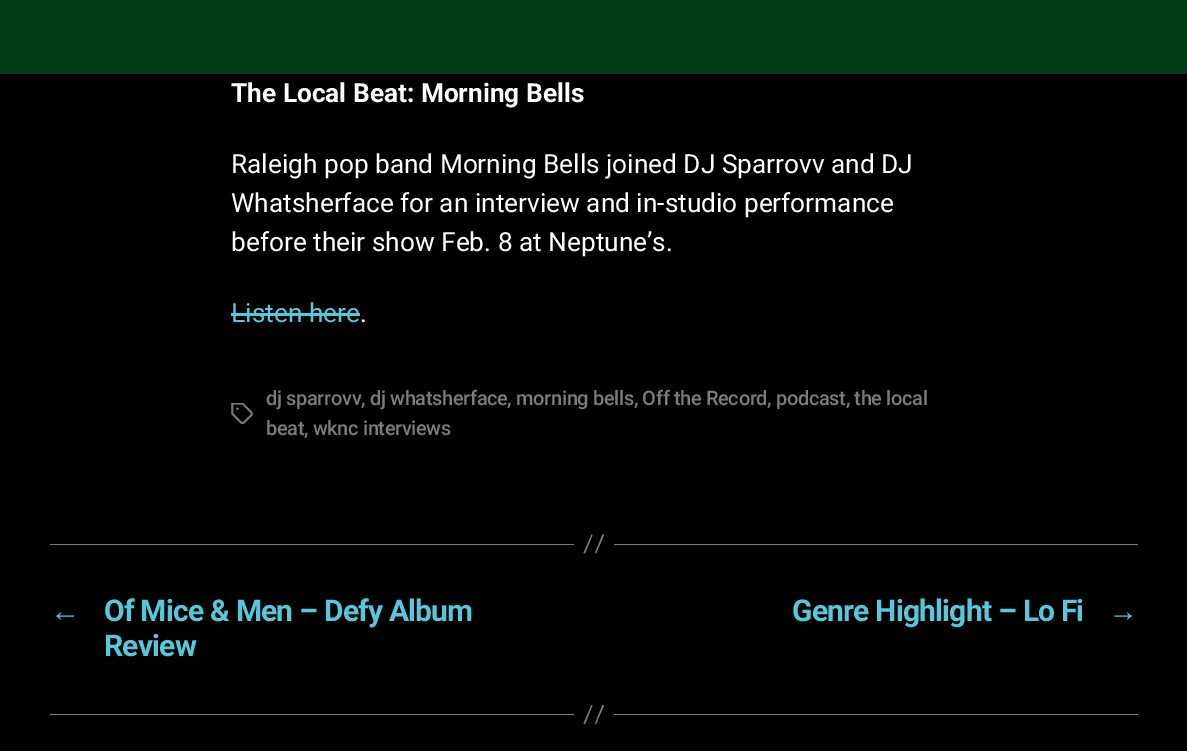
%!PS
<< /PageSize [1187 751] >> setpagedevice
/m/moveto load def
/l/rlineto load def
/z/closepath load def
/f/fill load def
/C { dup -16 bitshift 255 div exch dup -8 bitshift 255 and 255 div exch 255 and 255 div setrgbcolor } def
/F { [ exch dup neg 0 0 3 -1 roll 0 0 ] selectfont } def
/T { moveto show } def
/R { rectfill } def
/I { 5 dict begin { /h /w /y /x /name } { exch def } forall
  gsave x y translate w h scale
  w h 8 [w 0 0 h 0 0] name (r) file false 3 colorimage grestore end } def
0 751 translate 1 -1 scale
4 setmiterlimit
16#000000 C
0 0 1187 751 R
16#003D17 C
0 0 1187 74 R
/Roboto-Bold 26.25 F
16#FFFFFF C
(The Local Beat: Morning Bells) 231 102 T
/Roboto-Regular 26.25 F
(Raleigh pop band Morning Bells joined DJ Sparrovv and DJ) 231 173 T
(Whatsherface for an interview and in-studio performance) 231 212 T
(before their show Feb. 8 at Neptune’s.) 231 251 T
16#56C8DC C
(Listen here) 231 322 T
231 313 129 3 R
16#FFFFFF C
(.) 360 322 T
(1.rgb) 231 403 22 22 I
/Roboto-Medium 20 F
16#7C7C7C C
266 405 m -.35 0 (dj sparrovv, dj whatsherface, morning bells, Off the Record, podcast, the local) ashow
266 435 m -.35 0 (beat, wknc interviews) ashow
614 544 524 1 R
50 544 524 1 R
591.5 534.5 m 1 .5 l -7.5 18.5 l -1.5 -.5 l z 602.5 534.5 m 1.5 .5 l -8 18.5 l -1 -.5 l z f
/LiberationSerif-Bold 30 F
16#56C8DC C
50 621 m -.8 0 (←) ashow
/Roboto-Bold 30 F
104 621 m -.8 0 (Of Mice & Men – Defy Album) ashow
104 656 m -.8 0 (Review) ashow
792 621 m -.8 0 (Genre Highlight – Lo Fi) ashow
/LiberationSerif-Bold 30 F
1108 621 m -.8 0 (→) ashow
16#7C7C7C C
614 714 524 1 R
50 714 524 1 R
591.5 705 m 1 .5 l -7.5 18.5 l -1.5 -.5 l z 602.5 705 m 1.5 .5 l -8 18.5 l -1 -.5 l z f
showpage
